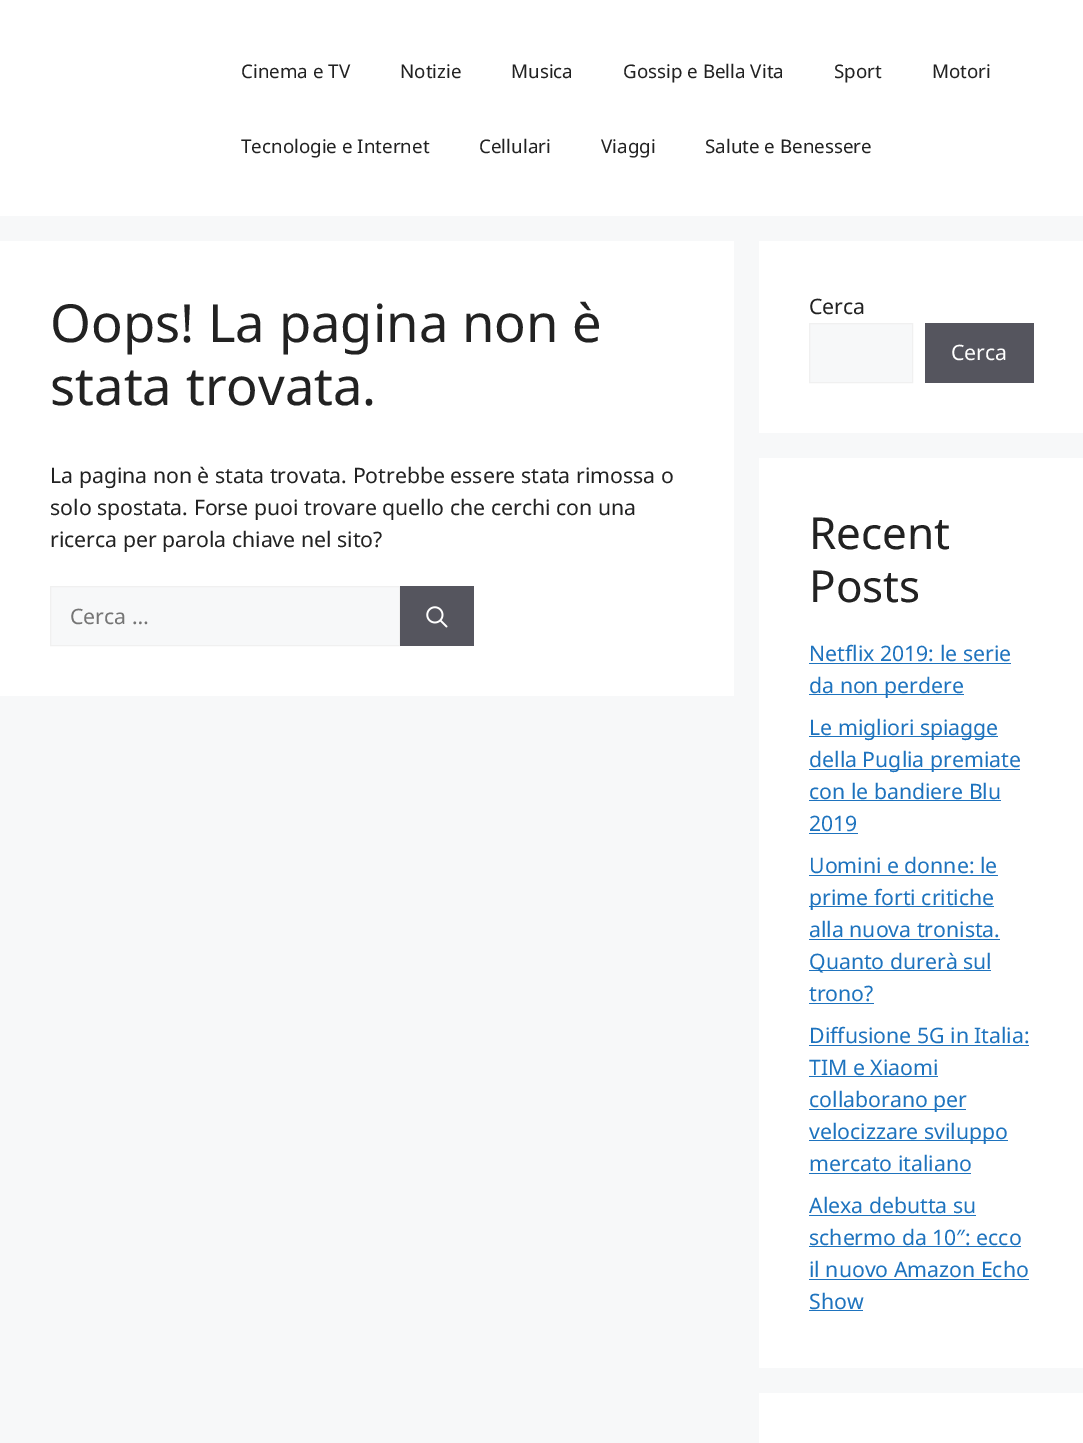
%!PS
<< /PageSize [1083 1443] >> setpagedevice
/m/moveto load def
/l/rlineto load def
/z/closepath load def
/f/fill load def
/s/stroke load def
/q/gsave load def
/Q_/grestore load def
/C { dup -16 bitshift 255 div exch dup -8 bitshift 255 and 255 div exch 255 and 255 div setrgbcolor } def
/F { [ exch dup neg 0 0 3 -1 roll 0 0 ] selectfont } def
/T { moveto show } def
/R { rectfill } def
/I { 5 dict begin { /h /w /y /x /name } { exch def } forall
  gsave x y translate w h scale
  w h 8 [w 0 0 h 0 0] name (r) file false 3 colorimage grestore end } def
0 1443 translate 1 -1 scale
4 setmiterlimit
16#F7F8F9 C
0 0 1083 1443 R
16#FFFFFF C
0 0 1083 216 R
/NotoSans-Regular 18.75 F
16#222222 C
(Cinema e TV) 241 78 T
(Notizie) 400 78 T
(Musica) 511 78 T
(Gossip e Bella Vita) 623 78 T
(Sport) 834 78 T
(Motori) 932 78 T
(Tecnologie e Internet) 241 153 T
(Cellulari) 479 153 T
(Viaggi) 601 153 T
(Salute e Benessere) 705 153 T
16#FFFFFF C
0 241 734 455 R
/NotoSans-Regular 52.5 F
16#222222 C
(Oops! La pagina non è) 50 342 T
(stata trovata.) 50 405 T
/NotoSans-Regular 21.25 F
(La pagina non è stata trovata. Potrebbe essere stata rimossa o) 50 483 T
(solo spostata. Forse puoi trovare quello che cerchi con una) 50 515 T
(ricerca per parola chiave nel sito?) 50 547 T
16#F7F8F9 C
50.5 586.5 m 349 0 l 0 59 l -349 0 l z q f Q_
16#F0F0F0 C
s
16#757575 C
(Cerca …) 70 624 T
16#55555E C
400 586 74 60 R
(1.rgb) 426 606 22 22 I
16#FFFFFF C
759 241 324 192 R
16#222222 C
(Cerca) 809 314 T
16#F7F8F9 C
809.5 323.5 m 103 0 l 0 59 l -103 0 l z q f Q_
16#F0F0F0 C
s
16#55555E C
925 323 109 60 R
16#FFFFFF C
(Cerca) 951 360 T
759 458 324 910 R
/NotoSans-Regular 44 F
16#222222 C
(Recent) 809 549 T
(Posts) 809 602 T
/NotoSans-Regular 21.25 F
16#1E73BE C
(Netflix 2019: le serie) 809 661 T
809 663 202 1 R
809 694 155 1 R
(da non perdere) 809 693 T
809 736 189 1 R
(Le migliori spiagge) 809 735 T
809 769 211 1 R
(della Puglia premiate) 809 767 T
(con le bandiere Blu) 809 799 T
809 800 192 1 R
(2019) 809 831 T
809 833 49 1 R
(Uomini e donne: le) 809 873 T
809 875 189 1 R
809 906 185 1 R
(prime forti critiche) 809 905 T
(alla nuova tronista.) 809 937 T
809 939 191 1 R
809 970 182 1 R
(Quanto durerà sul) 809 969 T
(trono?) 809 1001 T
809 1003 65 1 R
(Diffusione 5G in Italia:) 809 1043 T
809 1045 220 1 R
(TIM e Xiaomi) 809 1075 T
809 1076 129 1 R
809 1109 157 1 R
(collaborano per) 809 1107 T
809 1140 199 1 R
(velocizzare sviluppo) 809 1139 T
(mercato italiano) 809 1171 T
809 1173 162 1 R
(Alexa debutta su) 809 1213 T
809 1215 167 1 R
(schermo da 10″: ecco) 809 1245 T
809 1246 212 1 R
(il nuovo Amazon Echo) 809 1277 T
809 1279 220 1 R
(Show) 809 1309 T
809 1310 54 1 R
16#FFFFFF C
759 1393 324 50 R
showpage
